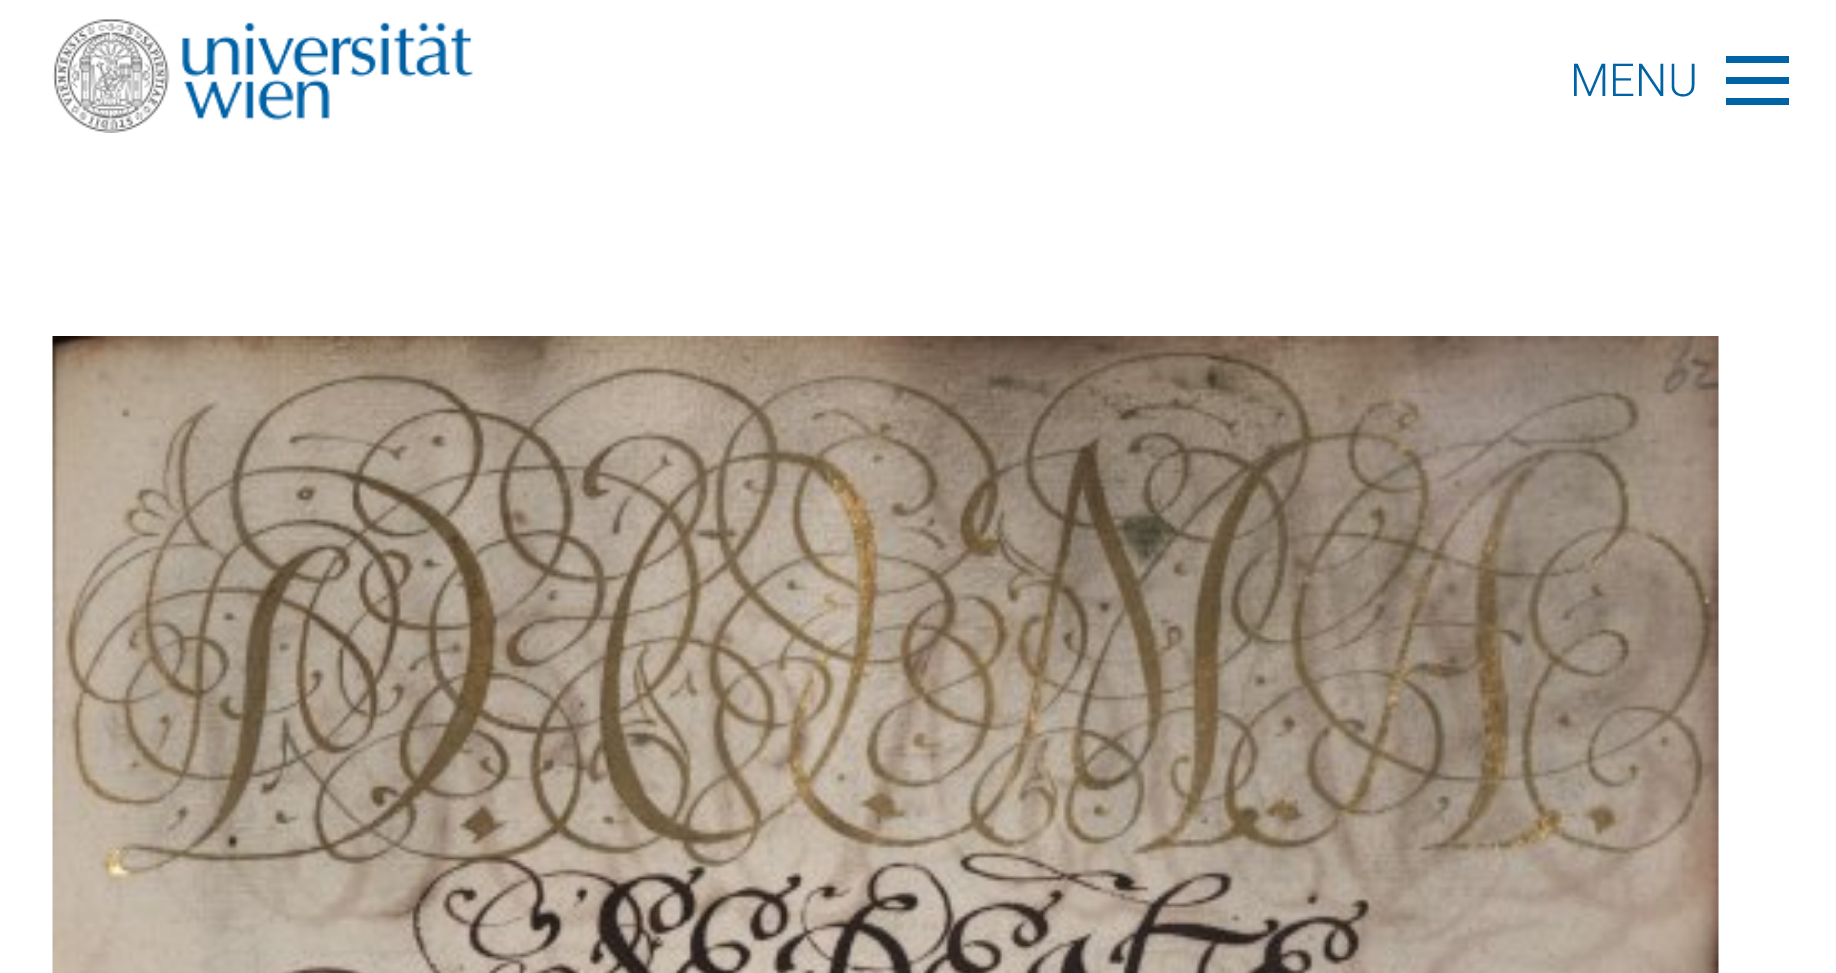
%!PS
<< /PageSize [1836 973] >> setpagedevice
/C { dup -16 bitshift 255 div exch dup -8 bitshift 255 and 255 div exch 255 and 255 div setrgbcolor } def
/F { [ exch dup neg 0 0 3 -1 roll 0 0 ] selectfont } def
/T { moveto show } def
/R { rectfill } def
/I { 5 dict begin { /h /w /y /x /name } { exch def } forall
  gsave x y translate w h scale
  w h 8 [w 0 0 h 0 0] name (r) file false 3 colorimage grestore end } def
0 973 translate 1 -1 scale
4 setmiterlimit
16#FFFFFF C
0 0 1836 973 R
(1.rgb) 52 18 421 115 I
/Roboto-Light 45.5 F
16#0063A6 C
(MENU) 1570 96 T
1726 98 63 7 R
1726 77 63 7 R
1726 56 63 7 R
16#F3F6F8 C
1718 336 1 637 R
(2.rgb) 52 336 1667 637 I
showpage
